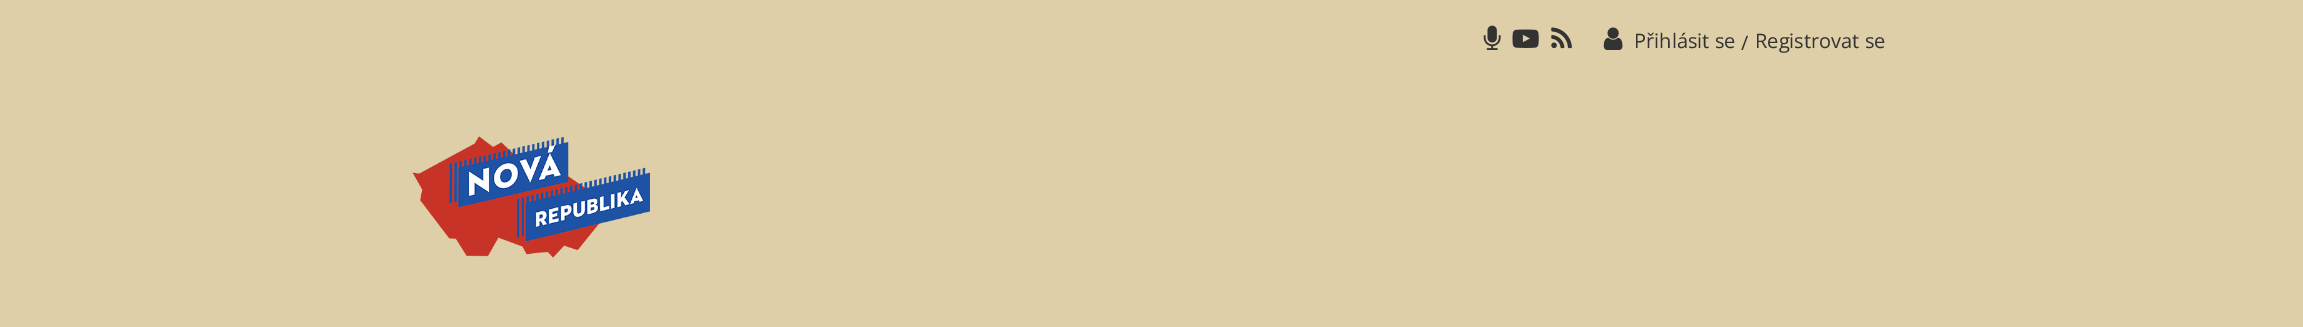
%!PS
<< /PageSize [2303 327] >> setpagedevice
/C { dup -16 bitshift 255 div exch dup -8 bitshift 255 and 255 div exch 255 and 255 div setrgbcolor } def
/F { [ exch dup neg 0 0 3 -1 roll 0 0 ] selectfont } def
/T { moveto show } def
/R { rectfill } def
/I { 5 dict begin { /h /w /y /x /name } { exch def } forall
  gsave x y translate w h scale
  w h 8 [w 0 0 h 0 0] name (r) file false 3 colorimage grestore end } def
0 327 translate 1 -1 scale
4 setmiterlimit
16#DFCFA8 C
0 0 2303 327 R
(1.rgb) 1483 25 18 25 I
(2.rgb) 1512 29 27 19 I
(3.rgb) 1551 27 21 22 I
(4.rgb) 1603 27 20 23 I
/OpenSans-Regular 20 F
16#333333 C
(Přihlásit se) 1634 48 T
(/) 1741 50 T
(Registrovat se) 1755 48 T
(5.rgb) 412 136 238 122 I
showpage
